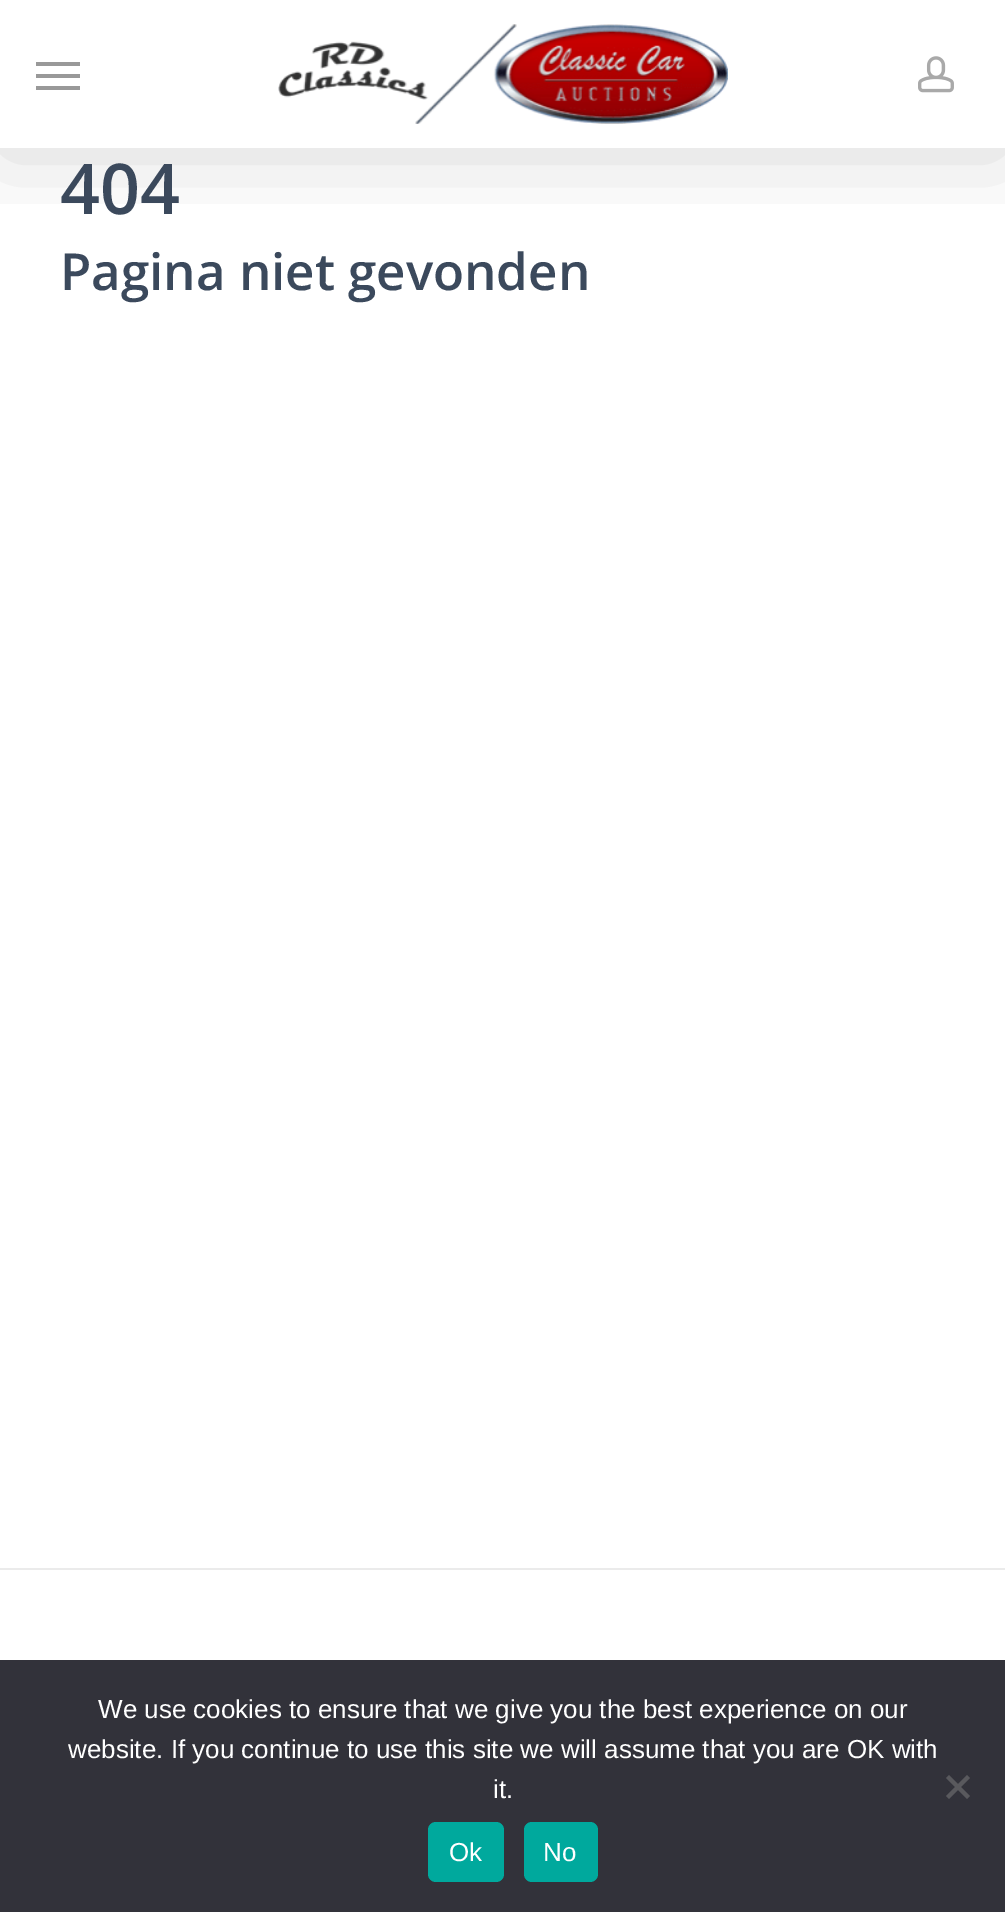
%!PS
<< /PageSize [1005 1912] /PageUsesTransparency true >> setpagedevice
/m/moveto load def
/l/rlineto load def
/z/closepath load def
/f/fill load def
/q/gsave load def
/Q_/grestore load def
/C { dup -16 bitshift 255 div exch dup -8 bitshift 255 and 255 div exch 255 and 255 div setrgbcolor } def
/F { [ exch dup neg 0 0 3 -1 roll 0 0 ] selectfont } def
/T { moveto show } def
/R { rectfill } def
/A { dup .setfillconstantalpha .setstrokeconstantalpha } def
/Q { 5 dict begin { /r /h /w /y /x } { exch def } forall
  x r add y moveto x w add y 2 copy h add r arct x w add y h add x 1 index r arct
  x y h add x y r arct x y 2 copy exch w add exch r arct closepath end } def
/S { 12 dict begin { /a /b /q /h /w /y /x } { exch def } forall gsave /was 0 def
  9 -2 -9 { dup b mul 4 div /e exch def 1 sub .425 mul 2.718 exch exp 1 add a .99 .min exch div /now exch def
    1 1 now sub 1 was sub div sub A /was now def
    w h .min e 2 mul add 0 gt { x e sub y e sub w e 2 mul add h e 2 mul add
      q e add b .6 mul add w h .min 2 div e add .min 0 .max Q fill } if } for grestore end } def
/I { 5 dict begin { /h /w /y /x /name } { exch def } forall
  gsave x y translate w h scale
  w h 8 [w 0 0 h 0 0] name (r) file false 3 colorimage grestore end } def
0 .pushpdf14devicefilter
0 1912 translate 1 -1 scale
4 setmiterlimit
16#FFFFFF C
0 0 1005 1912 R
q
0 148 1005 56 rectclip
16#000000 C
0 6 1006 148 0 45 .15 S
Q_
(1.rgb) 278 24 450 100 I
16#999999 C
36 62 44 4 R
36 86 44 4 R
36 74 44 4 R
(2.rgb) 918 56 36 37 I
/OpenSans-SemiBold 70 F
16#3B495C C
(404) 60 214 T
/OpenSans-SemiBold 51 F
(Pagina niet gevonden) 60 290 T
16#EBEBEB C
0 1568 1005 2 R
16#32323A C
0 1660 1005 252 R
/LiberationSans-Regular 26 F
16#FFFFFF C
(We use cookies to ensure that we give you the best experience on our) 98 1718 T
(website. If you continue to use this site we will assume that you are OK with) 68 1758 T
(it.) 493 1798 T
16#59595D C
967 1775 m 3 3 l -21 21 l -3 -3 l z f
946 1778 m 3 -3 l 21 21 l -3 3 l z f
16#00A99D C
428 1822 76 60 8 Q f
16#FFFFFF C
(Ok) 449 1861 T
16#00A99D C
524 1822 74 60 8 Q f
16#FFFFFF C
(No) 543 1861 T
.poppdf14devicefilter showpage
